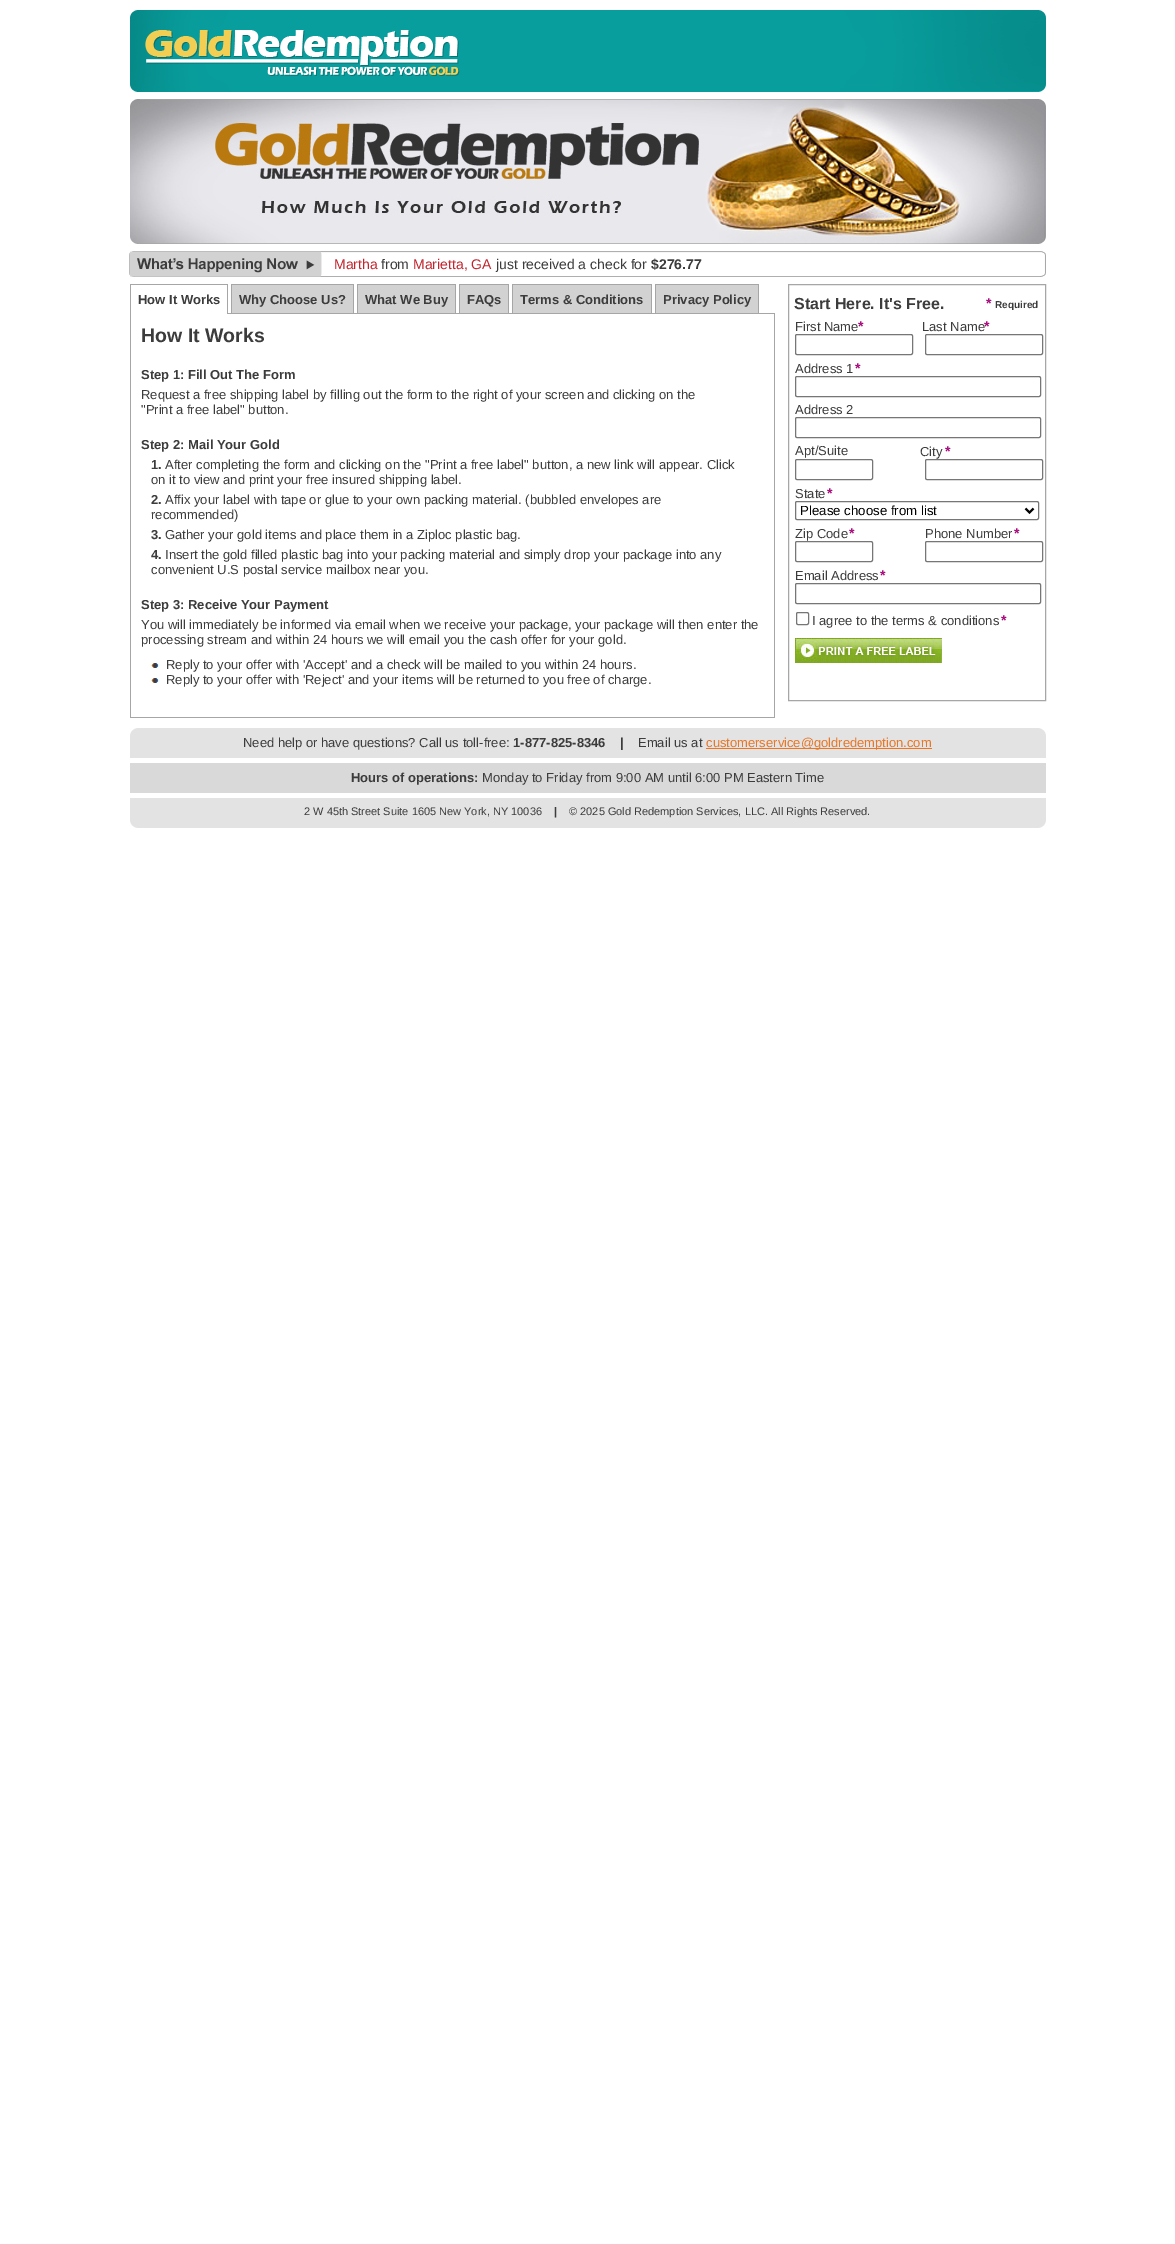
%!PS
<< /PageSize [1175 2244] >> setpagedevice
/m/moveto load def
/l/rlineto load def
/s/stroke load def
/w/setlinewidth load def
/C { dup -16 bitshift 255 div exch dup -8 bitshift 255 and 255 div exch 255 and 255 div setrgbcolor } def
/F { [ exch dup neg 0 0 3 -1 roll 0 0 ] selectfont } def
/T { moveto show } def
/R { rectfill } def
/Q { 5 dict begin { /r /h /w /y /x } { exch def } forall
  x r add y moveto x w add y 2 copy h add r arct x w add y h add x 1 index r arct
  x y h add x y r arct x y 2 copy exch w add exch r arct closepath end } def
/I { 5 dict begin { /h /w /y /x /name } { exch def } forall
  gsave x y translate w h scale
  w h 8 [w 0 0 h 0 0] name (r) file false 3 colorimage grestore end } def
0 2244 translate 1 -1 scale
4 setmiterlimit
16#FFFFFF C
0 0 1175 2244 R
(1.rgb) 130 10 916 82 I
(2.rgb) 135 38 320 54 I
(3.rgb) 130 99 916 145 I
(4.rgb) 129 251 917 26 I
/LiberationSans-Regular 14 F
16#C1242D C
(Martha) 334 269 T
16#3C3C3C C
(from) 381 269 T
16#C1242D C
(Marietta, GA) 413 269 T
16#3C3C3C C
(just received a check for) 496 269 T
/LiberationSans-Bold 14 F
($276.77) 651 269 T
16#A6A6A6 C
130 313 645 1 R
130 284 98 1 R
227 284 1 29 R
130 284 1 29 R
16#FFFFFF C
131 313 96 1 R
/LiberationSans-Bold 13 F
16#3C3C3C C
(How It Works) 138 304 T
16#D2D2D2 C
232 285 121 28 R
16#A6A6A6 C
231 284 123 1 R
353 284 1 29 R
231 284 1 29 R
16#3C3C3C C
(Why Choose Us?) 239 304 T
16#D2D2D2 C
358 285 97 28 R
16#A6A6A6 C
357 284 99 1 R
455 284 1 29 R
357 284 1 29 R
16#3C3C3C C
(What We Buy) 365 304 T
16#D2D2D2 C
460 285 48 28 R
16#A6A6A6 C
459 284 50 1 R
508 284 1 29 R
459 284 1 29 R
16#3C3C3C C
(FAQs) 467 304 T
16#D2D2D2 C
513 285 138 28 R
16#A6A6A6 C
512 284 140 1 R
651 284 1 29 R
512 284 1 29 R
16#3C3C3C C
(Terms & Conditions) 520 304 T
16#D2D2D2 C
656 285 102 28 R
16#A6A6A6 C
655 284 104 1 R
758 284 1 29 R
655 284 1 29 R
16#3C3C3C C
(Privacy Policy) 663 304 T
16#A6A6A6 C
774 314 1 404 R
130 717 645 1 R
130 314 1 404 R
/LiberationSans-Bold 19.5 F
16#3C3C3C C
(How It Works) 141 342 T
/LiberationSans-Bold 13 F
(Step 1: Fill Out The Form) 141 379 T
/LiberationSans-Regular 13 F
(Request a free shipping label by filling out the form to the right of your screen and clicking on the) 141 399 T
("Print a free label" button.) 141 414 T
/LiberationSans-Bold 13 F
(Step 2: Mail Your Gold) 141 449 T
(1.) 151 469 T
/LiberationSans-Regular 13 F
(After completing the form and clicking on the "Print a free label" button, a new link will appear. Click) 165 469 T
(on it to view and print your free insured shipping label.) 151 484 T
/LiberationSans-Bold 13 F
(2.) 151 504 T
/LiberationSans-Regular 13 F
(Affix your label with tape or glue to your own packing material. \(bubbled envelopes are) 165 504 T
(recommended\)) 151 519 T
/LiberationSans-Bold 13 F
(3.) 151 539 T
/LiberationSans-Regular 13 F
(Gather your gold items and place them in a Ziploc plastic bag.) 165 539 T
/LiberationSans-Bold 13 F
(4.) 151 559 T
/LiberationSans-Regular 13 F
(Insert the gold filled plastic bag into your packing material and simply drop your package into any) 165 559 T
(convenient U.S postal service mailbox near you.) 151 574 T
/LiberationSans-Bold 13 F
(Step 3: Receive Your Payment) 141 609 T
/LiberationSans-Regular 13 F
(You will immediately be informed via email when we receive your package, your package will then enter the) 141 629 T
(processing stream and within 24 hours we will email you the cash offer for your gold.) 141 644 T
(5.rgb) 151 663 8 5 I
(Reply to your offer with 'Accept' and a check will be mailed to you within 24 hours.) 166 669 T
(5.rgb) 151 678 8 5 I
(Reply to your offer with 'Reject' and your items will be returned to you free of charge.) 166 684 T
16#A6A6A6 C
788.5 284.5 257 416 rectstroke
/LiberationSans-Bold 16 F
16#3C3C3C C
(Start Here. It's Free.) 794 309 T
/LiberationSans-Bold 14 F
16#A80A7B C
(*) 986 308 T
/LiberationSans-Bold 10 F
16#3C3C3C C
(Required) 995 308 T
/LiberationSans-Regular 13 F
(First Name) 795 331 T
/LiberationSans-Bold 14 F
16#A80A7B C
(*) 858 331 T
/LiberationSans-Regular 13 F
16#3C3C3C C
(Last Name) 922 331 T
/LiberationSans-Bold 14 F
16#A80A7B C
(*) 984 331 T
16#767676 C
795.5 334.5 117 20 1.5 Q s
925.5 334.5 117 20 1.5 Q s
/LiberationSans-Regular 13 F
16#3C3C3C C
(Address 1) 795 373 T
/LiberationSans-Bold 14 F
16#A80A7B C
(*) 855 373 T
16#767676 C
795.5 376.5 245 20 1.5 Q s
/LiberationSans-Regular 13 F
16#3C3C3C C
(Address 2) 795 414 T
16#767676 C
795.5 417.5 245 20 1.5 Q s
16#3C3C3C C
(Apt/Suite) 795 455 T
(City) 920 456 T
/LiberationSans-Bold 14 F
16#A80A7B C
(*) 945 456 T
16#767676 C
795.5 459.5 77 20 1.5 Q s
925.5 459.5 117 20 1.5 Q s
/LiberationSans-Regular 13 F
16#3C3C3C C
(State) 795 498 T
/LiberationSans-Bold 14 F
16#A80A7B C
(*) 827 498 T
16#767676 C
795.5 501.5 243 18 1.5 Q s
16#000000 C
2 w
1025.5 508.5 m 4 4 l 4 -4 l s
/LiberationSans-Regular 13.25 F
(Please choose from list) 800 515 T
/LiberationSans-Regular 13 F
16#3C3C3C C
(Zip Code) 795 538 T
/LiberationSans-Bold 14 F
16#A80A7B C
(*) 849 538 T
/LiberationSans-Regular 13 F
16#3C3C3C C
(Phone Number) 925 538 T
/LiberationSans-Bold 14 F
16#A80A7B C
(*) 1014 538 T
16#767676 C
1 w
795.5 541.5 77 20 1.5 Q s
925.5 541.5 117 20 1.5 Q s
/LiberationSans-Regular 13 F
16#3C3C3C C
(Email Address) 795 580 T
/LiberationSans-Bold 14 F
16#A80A7B C
(*) 880 580 T
16#767676 C
795.5 583.5 245 20 1.5 Q s
796.5 612.5 12 12 1.5 Q s
/LiberationSans-Regular 13 F
16#3C3C3C C
(I agree to the terms & conditions) 812 625 T
/LiberationSans-Bold 14 F
16#A80A7B C
(*) 1001 625 T
(6.rgb) 795 638 147 25 I
(7.rgb) 130 728 916 30 I
/LiberationSans-Regular 13 F
16#3C3C3C C
(Need help or have questions? Call us toll-free:) 243 747 T
/LiberationSans-Bold 13 F
(1-877-825-8346) 513 747 T
(|) 620 747 T
/LiberationSans-Regular 13 F
(Email us at) 638 747 T
16#E87624 C
706 748 226 1 R
(customerservice@goldredemption.com) 706 747 T
16#D9D9D9 C
130 763 916 30 R
/LiberationSans-Bold 13 F
16#3C3C3C C
(Hours of operations:) 351 782 T
/LiberationSans-Regular 13 F
(Monday to Friday from 9:00 AM until 6:00 PM Eastern Time) 482 782 T
(8.rgb) 130 798 916 30 I
/LiberationSans-Regular 11 F
(2 W 45th Street Suite 1605 New York, NY 10036) 304 815 T
/LiberationSans-Bold 11 F
(|) 554 815 T
/LiberationSans-Regular 11 F
(© 2025 Gold Redemption Services, LLC. All Rights Reserved.) 569 815 T
showpage
